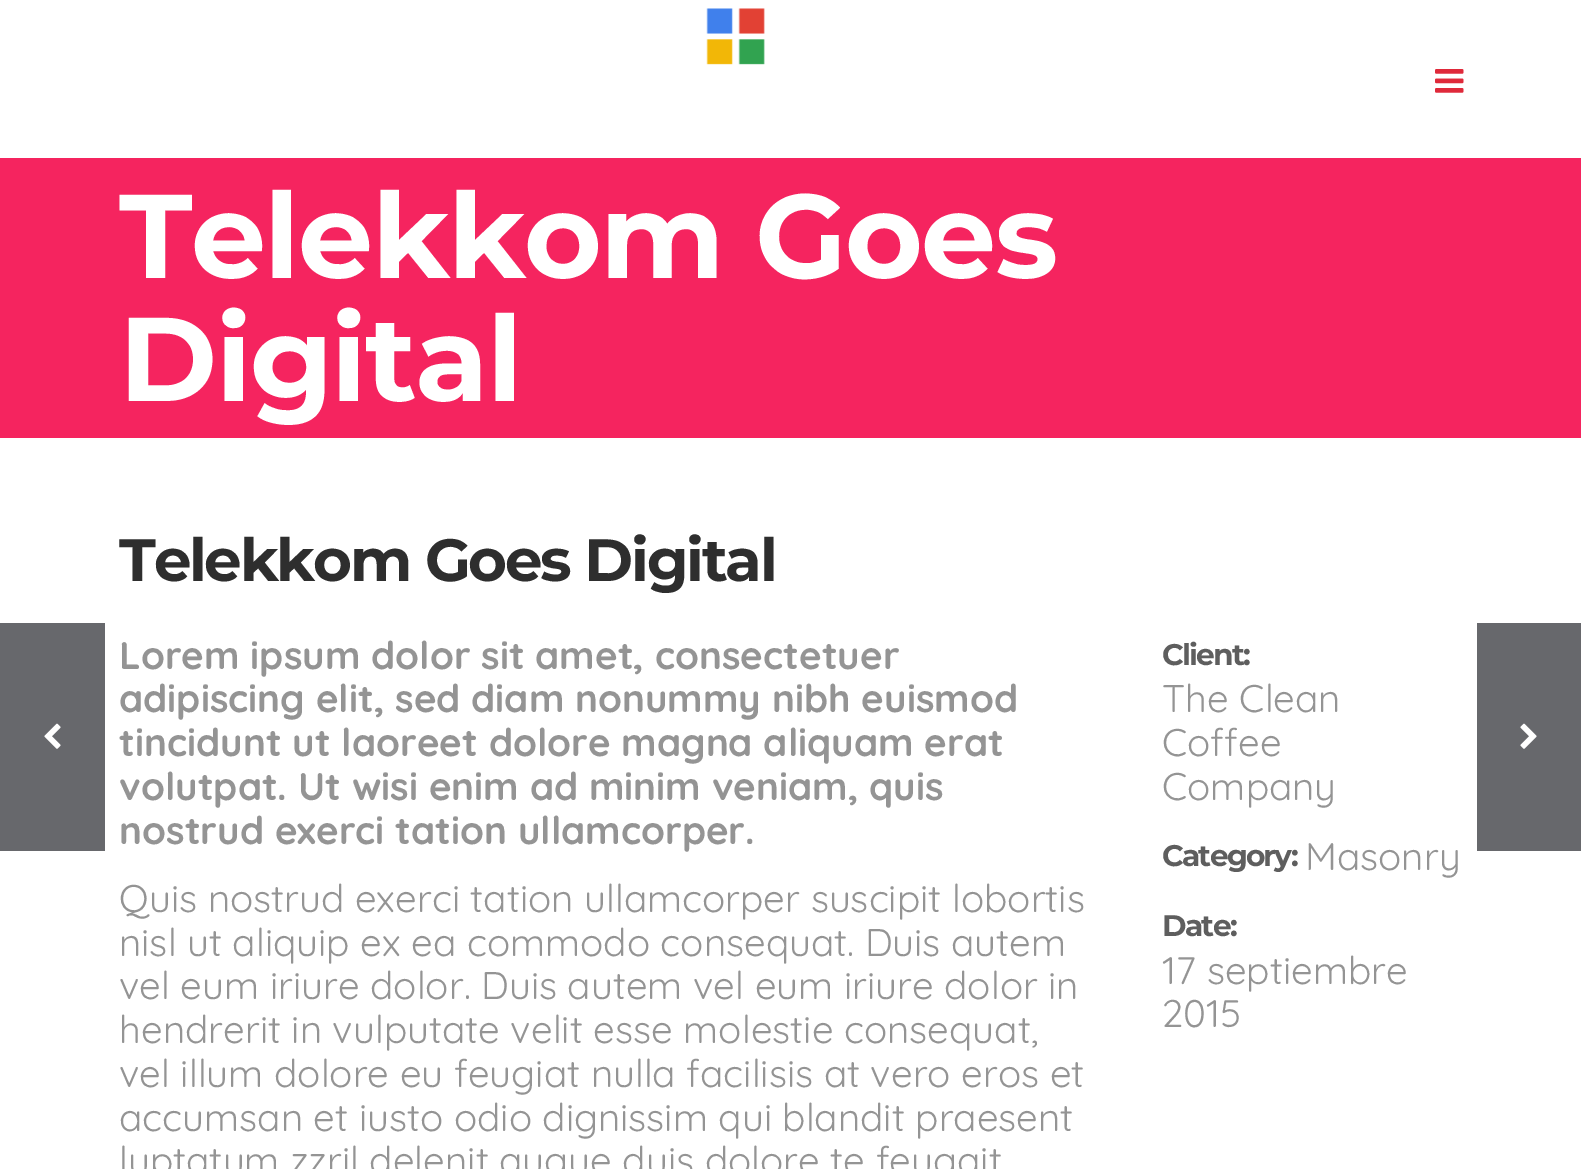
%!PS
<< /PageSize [1581 1169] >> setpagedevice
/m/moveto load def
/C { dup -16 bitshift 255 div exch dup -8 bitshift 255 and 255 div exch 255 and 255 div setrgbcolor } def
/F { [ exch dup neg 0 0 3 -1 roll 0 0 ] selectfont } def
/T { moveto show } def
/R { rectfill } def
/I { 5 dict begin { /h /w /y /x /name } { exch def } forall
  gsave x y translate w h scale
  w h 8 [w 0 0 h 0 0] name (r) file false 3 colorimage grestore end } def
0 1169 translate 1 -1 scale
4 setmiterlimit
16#FFFFFF C
0 0 1581 1169 R
(1.rgb) 706 8 59 57 I
(2.rgb) 1435 69 29 24 I
16#F5245F C
0 158 1581 280 R
/Montserrat-Bold 119 F
16#FFFFFF C
119 278 m -1.75 0 (Telekkom Goes) ashow
119 401 m -1.75 0 (Digital) ashow
/Montserrat-Bold 59.5 F
16#2E2E2E C
119 581 m -2.25 0 (Telekkom Goes Digital) ashow
/Quicksand-Bold 38.5 F
16#949494 C
(Lorem ipsum dolor sit amet, consectetuer) 119 669 T
(adipiscing elit, sed diam nonummy nibh euismod) 119 712 T
(tincidunt ut laoreet dolore magna aliquam erat) 119 756 T
(volutpat. Ut wisi enim ad minim veniam, quis) 119 800 T
(nostrud exerci tation ullamcorper.) 119 844 T
/Quicksand-Regular 38.5 F
(Quis nostrud exerci tation ullamcorper suscipit lobortis) 119 912 T
(nisl ut aliquip ex ea commodo consequat. Duis autem) 119 956 T
(vel eum iriure dolor. Duis autem vel eum iriure dolor in) 119 999 T
(hendrerit in vulputate velit esse molestie consequat,) 119 1043 T
(vel illum dolore eu feugiat nulla facilisis at vero eros et) 119 1087 T
(accumsan et iusto odio dignissim qui blandit praesent) 119 1131 T
(luptatum zzril delenit augue duis dolore te feugait) 119 1174 T
/Montserrat-Bold 29.75 F
16#5E5E5E C
1162 665 m -1.75 0 (Client:) ashow
/Quicksand-Regular 38.5 F
16#949494 C
(The Clean) 1162 712 T
(Coffee) 1162 756 T
(Company) 1162 800 T
/Montserrat-Bold 29.75 F
16#5E5E5E C
1162 866 m -1.75 0 (Category:) ashow
/Quicksand-Regular 38.5 F
16#949494 C
(Masonry) 1305 870 T
/Montserrat-Bold 29.75 F
16#5E5E5E C
1162 936 m -1.75 0 (Date:) ashow
/Quicksand-Regular 38.5 F
16#949494 C
(17 septiembre) 1162 984 T
(2015) 1162 1027 T
16#67686C C
0 623 105 228 R
(3.rgb) 44 723 17 26 I
1477 623 104 228 R
(4.rgb) 1520 723 17 26 I
showpage
